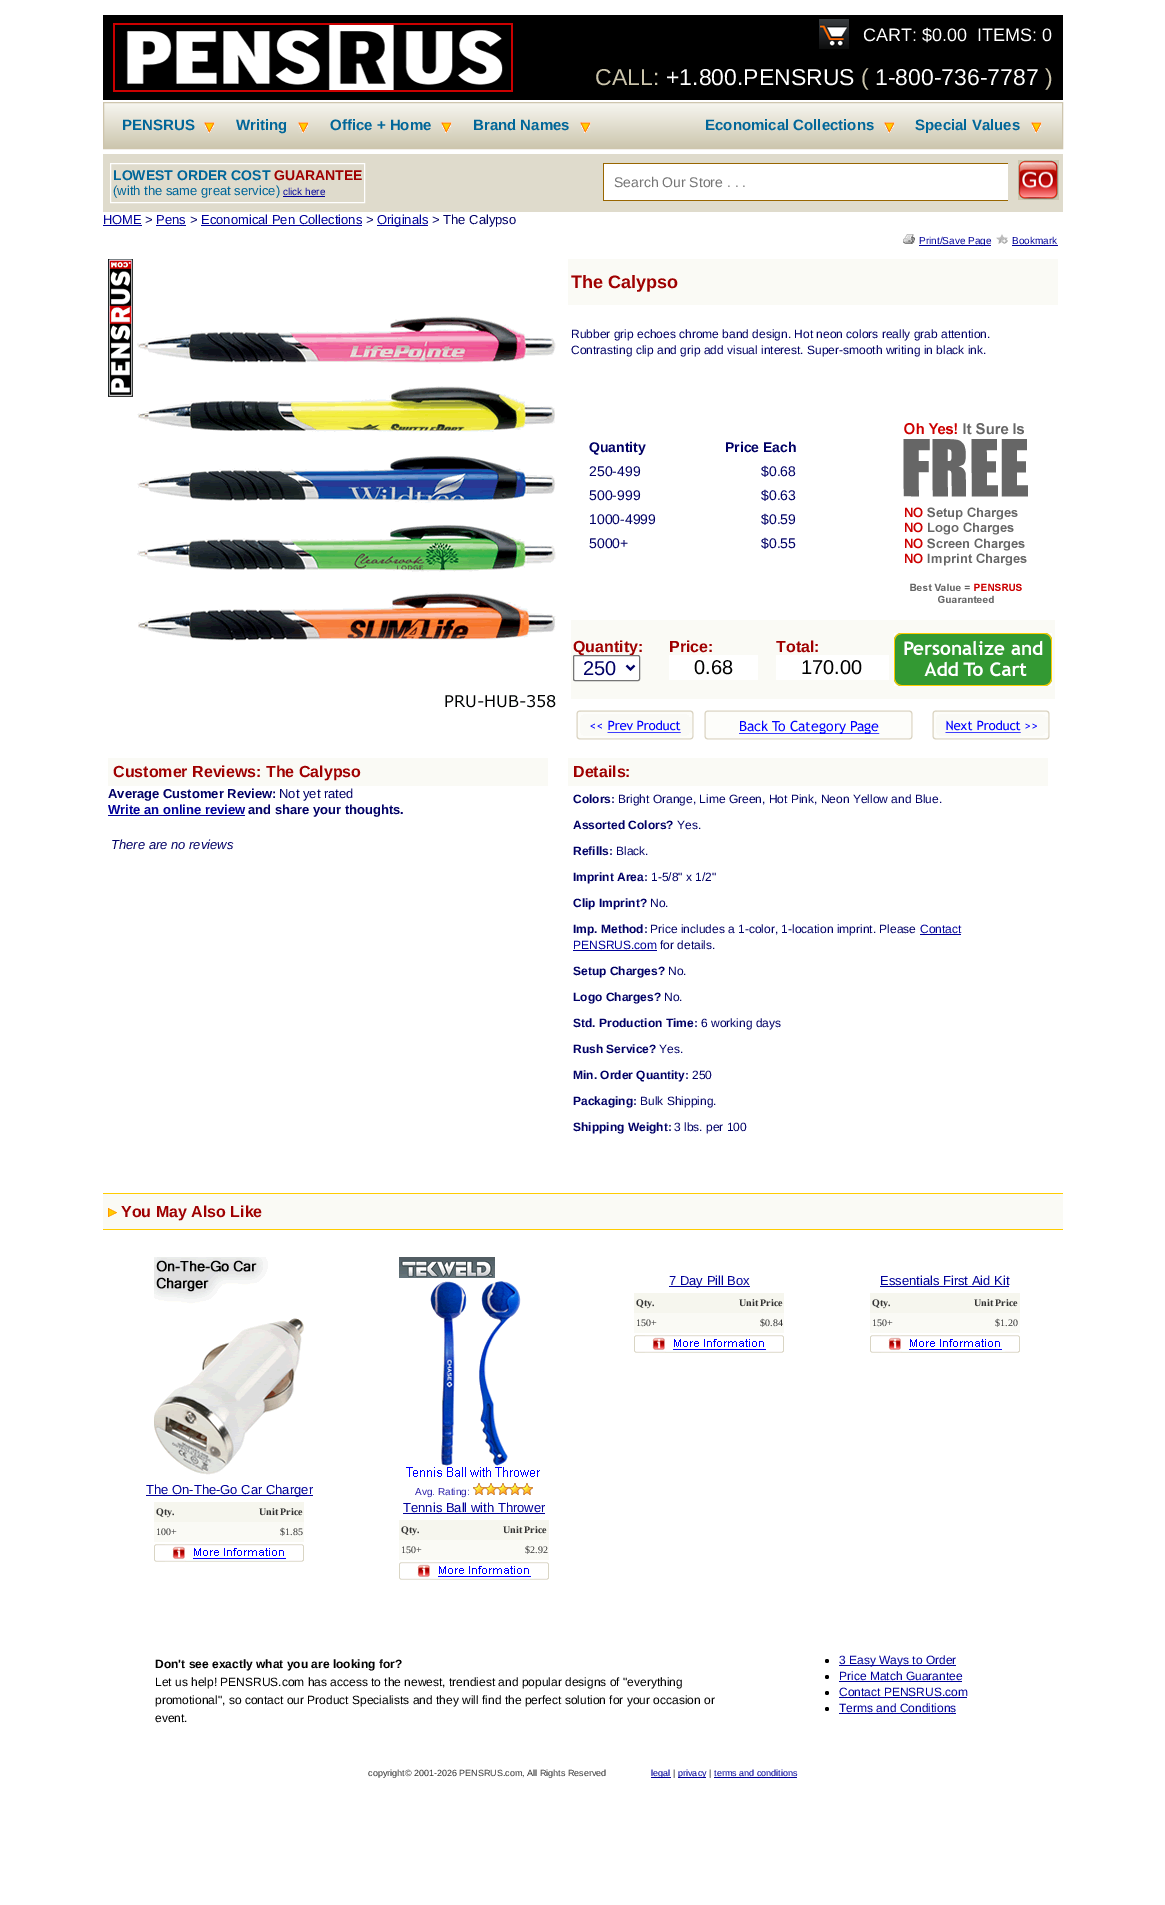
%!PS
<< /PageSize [1165 1905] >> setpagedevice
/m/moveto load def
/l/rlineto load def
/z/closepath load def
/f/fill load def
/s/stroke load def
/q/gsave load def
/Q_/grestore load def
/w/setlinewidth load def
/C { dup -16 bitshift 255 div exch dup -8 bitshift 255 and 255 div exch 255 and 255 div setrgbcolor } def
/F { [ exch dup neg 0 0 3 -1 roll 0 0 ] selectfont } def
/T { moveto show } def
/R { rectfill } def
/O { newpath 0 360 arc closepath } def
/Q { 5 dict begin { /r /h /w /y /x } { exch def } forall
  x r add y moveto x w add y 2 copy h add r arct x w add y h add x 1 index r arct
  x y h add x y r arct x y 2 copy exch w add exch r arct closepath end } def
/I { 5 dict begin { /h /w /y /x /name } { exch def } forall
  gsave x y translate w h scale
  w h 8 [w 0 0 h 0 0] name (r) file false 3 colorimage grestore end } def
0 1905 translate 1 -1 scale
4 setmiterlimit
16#FFFFFF C
0 0 1165 1905 R
16#000000 C
103 15 960 85 R
(1.rgb) 113 23 400 69 I
(2.rgb) 819 19 30 30 I
/LiberationSans-Regular 18 F
16#FFFFFF C
(CART: $0.00  ITEMS: 0) 863 41 T
/LiberationSans-Regular 23 F
16#CCC5AC C
(CALL:) 595 85 T
16#FFFFFF C
(+1.800.PENSRUS) 666 85 T
16#CCC5AC C
(\() 861 85 T
16#FFFFFF C
(1-800-736-7787) 875 85 T
16#CCC5AC C
(\)) 1045 85 T
q 104 103 m 958 0 l 0 45 l -958 0 l z clip newpath
<< /ShadingType 2 /ColorSpace /DeviceRGB /Coords [104 103 104 148] /Extend [true true] /Function << /FunctionType 2 /Domain [0 1] /C0 [.969 .965 .941] /C1 [.8 .776 .682] /N 1 >> >> shfill Q_
16#CEC5AD C
103.5 102.5 959 46 rectstroke
(3.rgb) 204 122 11 11 I
/LiberationSans-Bold 15 F
16#006699 C
(PENSRUS) 122 130 T
(3.rgb) 298 122 11 11 I
(Writing) 236 130 T
(3.rgb) 441 122 11 11 I
(Office + Home) 330 130 T
(3.rgb) 580 122 11 11 I
(Brand Names) 473 130 T
(3.rgb) 884 122 11 11 I
(Economical Collections) 705 130 T
(3.rgb) 1031 122 11 11 I
(Special Values) 915 130 T
16#DFDBCC C
103 154 960 58 R
16#FFFFFF C
110.5 163.5 254 39 rectstroke
/LiberationSans-Bold 14 F
16#006699 C
(LOWEST ORDER COST) 113 180 T
16#9F0000 C
(GUARANTEE) 274 180 T
/LiberationSans-Regular 13 F
16#006699 C
(\(with the same great service\)) 113 195 T
/LiberationSans-Regular 10 F
16#000099 C
(click here) 283 195 T
283 196 42 1 R
16#FFFFFF C
604 164 404 36 R
16#996600 C
603 163 405 1 R
603 200 405 1 R
603 163 1 38 R
/LiberationSans-Regular 14 F
16#757575 C
(Search Our Store . . .) 614 187 T
(4.rgb) 1018 160 41 40 I
/LiberationSans-Regular 13 F
16#000099 C
(HOME) 103 224 T
103 225 39 1 R
16#000066 C
(>) 145 224 T
16#000099 C
(Pens) 156 224 T
156 225 30 1 R
16#000066 C
(>) 190 224 T
16#000099 C
(Economical Pen Collections) 201 224 T
201 225 161 1 R
16#000066 C
(>) 366 224 T
16#000099 C
377 225 51 1 R
(Originals) 377 224 T
16#000066 C
(> The Calypso) 432 224 T
(5.rgb) 903 234 12 10 I
16#000099 C
919 245 72 1 R
/LiberationSans-Regular 10 F
(Print/Save Page) 919 244 T
(6.rgb) 996 234 12 10 I
(Bookmark) 1012 244 T
1012 245 46 1 R
(7.rgb) 108 259 448 449 I
16#FAFAF5 C
568 259 490 46 R
/LiberationSans-Bold 18 F
16#9F0000 C
(The Calypso) 571 288 T
/LiberationSans-Regular 12 F
16#000066 C
(Rubber grip echoes chrome band design. Hot neon colors really grab attention.) 571 338 T
(Contrasting clip and grip add visual interest. Super-smooth writing in black ink.) 571 354 T
/LiberationSans-Bold 14 F
(Quantity) 589 452 T
(Price Each) 725 452 T
/LiberationSans-Regular 14 F
(250-499) 589 476 T
($0.68) 761 476 T
(500-999) 589 500 T
($0.63) 761 500 T
(1000-4999) 589 524 T
($0.59) 761 524 T
(5000+) 589 548 T
($0.55) 761 548 T
(8.rgb) 903 423 125 180 I
16#FAFAF5 C
571 620 484 79 R
/LiberationSans-Bold 16 F
16#9F0000 C
(Quantity:) 573 652 T
16#FFFFFF C
573.5 655.5 66 25 1.5 Q q f Q_
16#767676 C
s
16#000066 C
2 w
626.5 665.5 m 4 4 l 4 -4 l s
/LiberationSans-Regular 20 F
(250) 583 675 T
/LiberationSans-Bold 16 F
16#9F0000 C
(Price:) 669 652 T
16#FFFFFF C
669 655 89 25 R
/LiberationSans-Regular 20 F
16#000000 C
(0.68) 694 674 T
/LiberationSans-Bold 16 F
16#9F0000 C
(Total:) 776 652 T
16#FFFFFF C
776 655 113 25 R
/LiberationSans-Regular 20 F
16#000000 C
(170.00) 801 674 T
(9.rgb) 894 633 158 53 I
(10.rgb) 576 710 118 30 I
(11.rgb) 704 710 209 30 I
(12.rgb) 932 710 118 30 I
16#FAFAF5 C
108 758 440 28 R
/LiberationSans-Bold 16 F
16#9F0000 C
(Customer Reviews: The Calypso) 113 777 T
/LiberationSans-Bold 13 F
16#000066 C
(Average Customer Review:) 108 798 T
/LiberationSans-Regular 13 F
(Not yet rated) 279 798 T
/LiberationSans-Bold 13 F
16#000099 C
(Write an online review) 108 814 T
108 815 137 1 R
16#000066 C
(and share your thoughts.) 248 814 T
/LiberationSans-Italic 13 F
(There are no reviews) 111 849 T
16#FAFAF5 C
568 758 480 28 R
/LiberationSans-Bold 16 F
16#9F0000 C
(Details:) 573 777 T
/LiberationSans-Bold 12 F
16#000066 C
(Colors:) 573 803 T
/LiberationSans-Regular 12 F
(Bright Orange, Lime Green, Hot Pink, Neon Yellow and Blue.) 618 803 T
/LiberationSans-Bold 12 F
(Assorted Colors?) 573 829 T
/LiberationSans-Regular 12 F
(Yes.) 677 829 T
/LiberationSans-Bold 12 F
(Refills:) 573 855 T
/LiberationSans-Regular 12 F
(Black.) 616 855 T
/LiberationSans-Bold 12 F
(Imprint Area:) 573 881 T
/LiberationSans-Regular 12 F
(1-5/8" x 1/2") 651 881 T
/LiberationSans-Bold 12 F
(Clip Imprint?) 573 907 T
/LiberationSans-Regular 12 F
(No.) 650 907 T
/LiberationSans-Bold 12 F
(Imp. Method:) 573 933 T
/LiberationSans-Regular 12 F
(Price includes a 1-color, 1-location imprint. Please) 650 933 T
16#000099 C
(Contact) 920 933 T
920 934 41 1 R
(PENSRUS.com) 573 949 T
573 950 84 1 R
16#000066 C
(for details.) 660 949 T
/LiberationSans-Bold 12 F
(Setup Charges?) 573 975 T
/LiberationSans-Regular 12 F
(No.) 668 975 T
/LiberationSans-Bold 12 F
(Logo Charges?) 573 1001 T
/LiberationSans-Regular 12 F
(No.) 664 1001 T
/LiberationSans-Bold 12 F
(Std. Production Time:) 573 1027 T
/LiberationSans-Regular 12 F
(6 working days) 701 1027 T
/LiberationSans-Bold 12 F
(Rush Service?) 573 1053 T
/LiberationSans-Regular 12 F
(Yes.) 659 1053 T
/LiberationSans-Bold 12 F
(Min. Order Quantity:) 573 1079 T
/LiberationSans-Regular 12 F
(250) 692 1079 T
/LiberationSans-Bold 12 F
(Packaging:) 573 1105 T
/LiberationSans-Regular 12 F
(Bulk Shipping.) 640 1105 T
/LiberationSans-Bold 12 F
(Shipping Weight:) 573 1131 T
/LiberationSans-Regular 12 F
(3 lbs. per 100) 674 1131 T
16#FAFAF5 C
103 1194 960 35 R
16#FFCC00 C
103 1193 960 1 R
103 1229 960 1 R
(13.rgb) 108 1208 9 9 I
/LiberationSans-Bold 16 F
16#9F0000 C
(You May Also Like) 121 1217 T
16#000099 C
669 1286 81 1 R
/LiberationSans-Regular 13 F
(7 Day Pill Box) 669 1285 T
16#FAFAF5 C
634 1313 150 20 R
16#F6F6EE C
634 1293 150 20 R
/LiberationSerif-Bold 10 F
16#333333 C
(Qty.) 636 1306 T
(Unit Price) 739 1306 T
/LiberationSerif-Regular 10 F
(150+) 636 1326 T
($0.84) 760 1326 T
(14.rgb) 634 1335 150 18 I
/LiberationSans-Regular 13 F
16#000099 C
(Essentials First Aid Kit) 880 1285 T
880 1286 129 1 R
16#FAFAF5 C
870 1313 150 20 R
16#F6F6EE C
870 1293 150 20 R
/LiberationSerif-Bold 10 F
16#333333 C
(Qty.) 872 1306 T
(Unit Price) 974 1306 T
/LiberationSerif-Regular 10 F
(150+) 872 1326 T
($1.20) 995 1326 T
(14.rgb) 870 1335 150 18 I
(15.rgb) 154 1257 150 218 I
16#000099 C
146 1495 167 1 R
/LiberationSans-Regular 13 F
(The On-The-Go Car Charger) 146 1494 T
16#FAFAF5 C
154 1522 150 20 R
16#F6F6EE C
154 1502 150 20 R
/LiberationSerif-Bold 10 F
16#333333 C
(Qty.) 156 1515 T
(Unit Price) 259 1515 T
/LiberationSerif-Regular 10 F
(100+) 156 1535 T
($1.85) 280 1535 T
(14.rgb) 154 1544 150 18 I
(16.rgb) 399 1257 141 220 I
/LiberationSans-Regular 10 F
16#2A1FAA C
(Avg. Rating:) 415 1495 T
(17.rgb) 473 1483 12 12 I
(17.rgb) 485 1483 12 12 I
(17.rgb) 497 1483 12 12 I
(17.rgb) 509 1483 12 12 I
(17.rgb) 521 1483 12 12 I
/LiberationSans-Regular 13 F
16#000099 C
(Tennis Ball with Thrower) 403 1512 T
403 1513 142 1 R
16#FAFAF5 C
399 1540 150 20 R
16#F6F6EE C
399 1520 150 20 R
/LiberationSerif-Bold 10 F
16#333333 C
(Qty.) 401 1533 T
(Unit Price) 503 1533 T
/LiberationSerif-Regular 10 F
(150+) 401 1553 T
($2.92) 525 1553 T
(14.rgb) 399 1562 150 18 I
/LiberationSans-Bold 12 F
16#000000 C
(Don't see exactly what you are looking for?) 155 1668 T
/LiberationSans-Regular 12 F
(Let us help! PENSRUS.com has access to the newest, trendiest and popular designs of "everything) 155 1686 T
(promotional", so contact our Product Specialists and they will find the perfect solution for your occasion or) 155 1704 T
(event.) 155 1722 T
827 1661 2 O f
16#000099 C
839 1665 117 1 R
(3 Easy Ways to Order) 839 1664 T
16#000000 C
827 1677 2 O f
16#000099 C
(Price Match Guarantee) 839 1680 T
839 1681 123 1 R
16#000000 C
827 1693 2 O f
16#000099 C
(Contact PENSRUS.com) 839 1696 T
839 1697 128 1 R
16#000000 C
827 1709 2 O f
16#000099 C
(Terms and Conditions) 839 1712 T
839 1713 117 1 R
/LiberationSans-Regular 9 F
16#333333 C
(copyright© 2001-2026 PENSRUS.com, All Rights Reserved) 368 1776 T
16#000099 C
651 1777 20 1 R
(legal) 651 1776 T
16#333333 C
(|) 673 1776 T
16#000099 C
678 1777 28 1 R
(privacy) 678 1776 T
16#333333 C
(|) 709 1776 T
16#000099 C
(terms and conditions) 714 1776 T
714 1777 83 1 R
showpage
